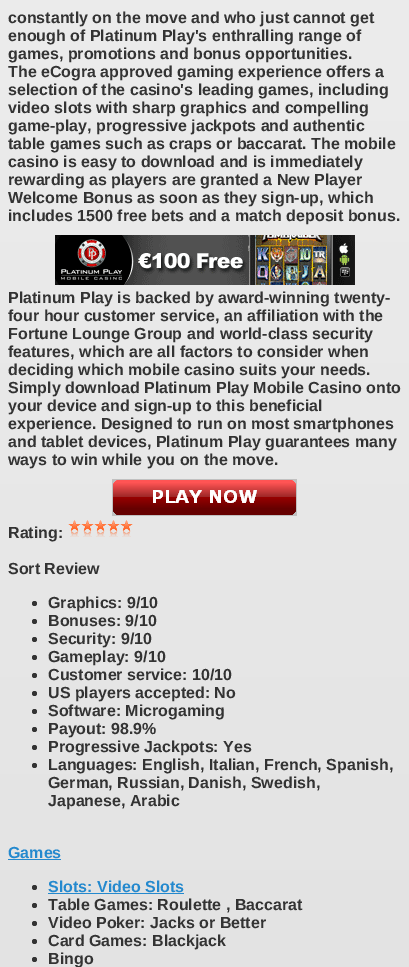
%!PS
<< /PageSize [409 967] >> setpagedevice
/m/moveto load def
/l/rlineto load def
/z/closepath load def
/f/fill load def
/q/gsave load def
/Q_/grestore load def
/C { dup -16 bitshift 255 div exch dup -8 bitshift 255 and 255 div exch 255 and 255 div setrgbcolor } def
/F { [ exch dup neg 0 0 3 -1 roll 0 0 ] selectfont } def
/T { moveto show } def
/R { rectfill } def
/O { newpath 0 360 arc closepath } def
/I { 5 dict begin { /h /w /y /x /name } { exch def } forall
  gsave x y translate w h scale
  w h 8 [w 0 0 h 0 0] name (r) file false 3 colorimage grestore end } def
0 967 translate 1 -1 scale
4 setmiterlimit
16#FFFFFF C
0 0 409 967 R
q 0 0 m 409 0 l 0 967 l -409 0 l z clip newpath
<< /ShadingType 2 /ColorSpace /DeviceRGB /Coords [0 -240 0 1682] /Extend [true true] /Function << /FunctionType 2 /Domain [0 1] /C0 [.933 .933 .933] /C1 [.867 .867 .867] /N 1 >> >> shfill Q_
/LiberationSans-Bold 16 F
16#333333 C
(constantly on the move and who just cannot get) 8 23 T
(enough of Platinum Play's enthralling range of) 8 41 T
(games, promotions and bonus opportunities.) 8 59 T
(The eCogra approved gaming experience offers a) 8 77 T
(selection of the casino's leading games, including) 8 95 T
(video slots with sharp graphics and compelling) 8 113 T
(game-play, progressive jackpots and authentic) 8 131 T
(table games such as craps or baccarat. The mobile) 8 149 T
(casino is easy to download and is immediately) 8 167 T
(rewarding as players are granted a New Player) 8 185 T
(Welcome Bonus as soon as they sign-up, which) 8 203 T
(includes 1500 free bets and a match deposit bonus.) 8 221 T
(1.rgb) 55 235 300 50 I
(Platinum Play is backed by award-winning twenty-) 8 303 T
(four hour customer service, an affiliation with the) 8 321 T
(Fortune Lounge Group and world-class security) 8 339 T
(features, which are all factors to consider when) 8 357 T
(deciding which mobile casino suits your needs.) 8 375 T
(Simply download Platinum Play Mobile Casino onto) 8 393 T
(your device and sign-up to this beneficial) 8 411 T
(experience. Designed to run on most smartphones) 8 429 T
(and tablet devices, Platinum Play guarantees many) 8 447 T
(ways to win while you on the move.) 8 465 T
(2.rgb) 112 479 185 37 I
(Rating:) 8 538 T
(3.rgb) 68 520 65 17 I
(Sort Review) 8 574 T
34.5 603.5 2.5 O f
(Graphics: 9/10) 48 608 T
34.5 621.5 2.5 O f
(Bonuses: 9/10) 48 626 T
34.5 639.5 2.5 O f
(Security: 9/10) 48 644 T
34.5 657.5 2.5 O f
(Gameplay: 9/10) 48 662 T
34.5 675.5 2.5 O f
(Customer service: 10/10) 48 680 T
34.5 693.5 2.5 O f
(US players accepted: No) 48 698 T
34.5 711.5 2.5 O f
(Software: Microgaming) 48 716 T
34.5 729.5 2.5 O f
(Payout: 98.9%) 48 734 T
34.5 747.5 2.5 O f
(Progressive Jackpots: Yes) 48 752 T
34.5 765.5 2.5 O f
(Languages: English, Italian, French, Spanish,) 48 770 T
(German, Russian, Danish, Swedish,) 48 788 T
(Japanese, Arabic) 48 806 T
16#2489CE C
(Games) 8 858 T
8 859 53 1 R
16#333333 C
34.5 887.5 2.5 O f
16#2489CE C
(Slots: Video Slots) 48 892 T
48 893 136 1 R
16#333333 C
34.5 905.5 2.5 O f
(Table Games: Roulette , Baccarat) 48 910 T
34.5 923.5 2.5 O f
(Video Poker: Jacks or Better) 48 928 T
34.5 941.5 2.5 O f
(Card Games: Blackjack) 48 946 T
34.5 959.5 2.5 O f
(Bingo) 48 964 T
showpage
